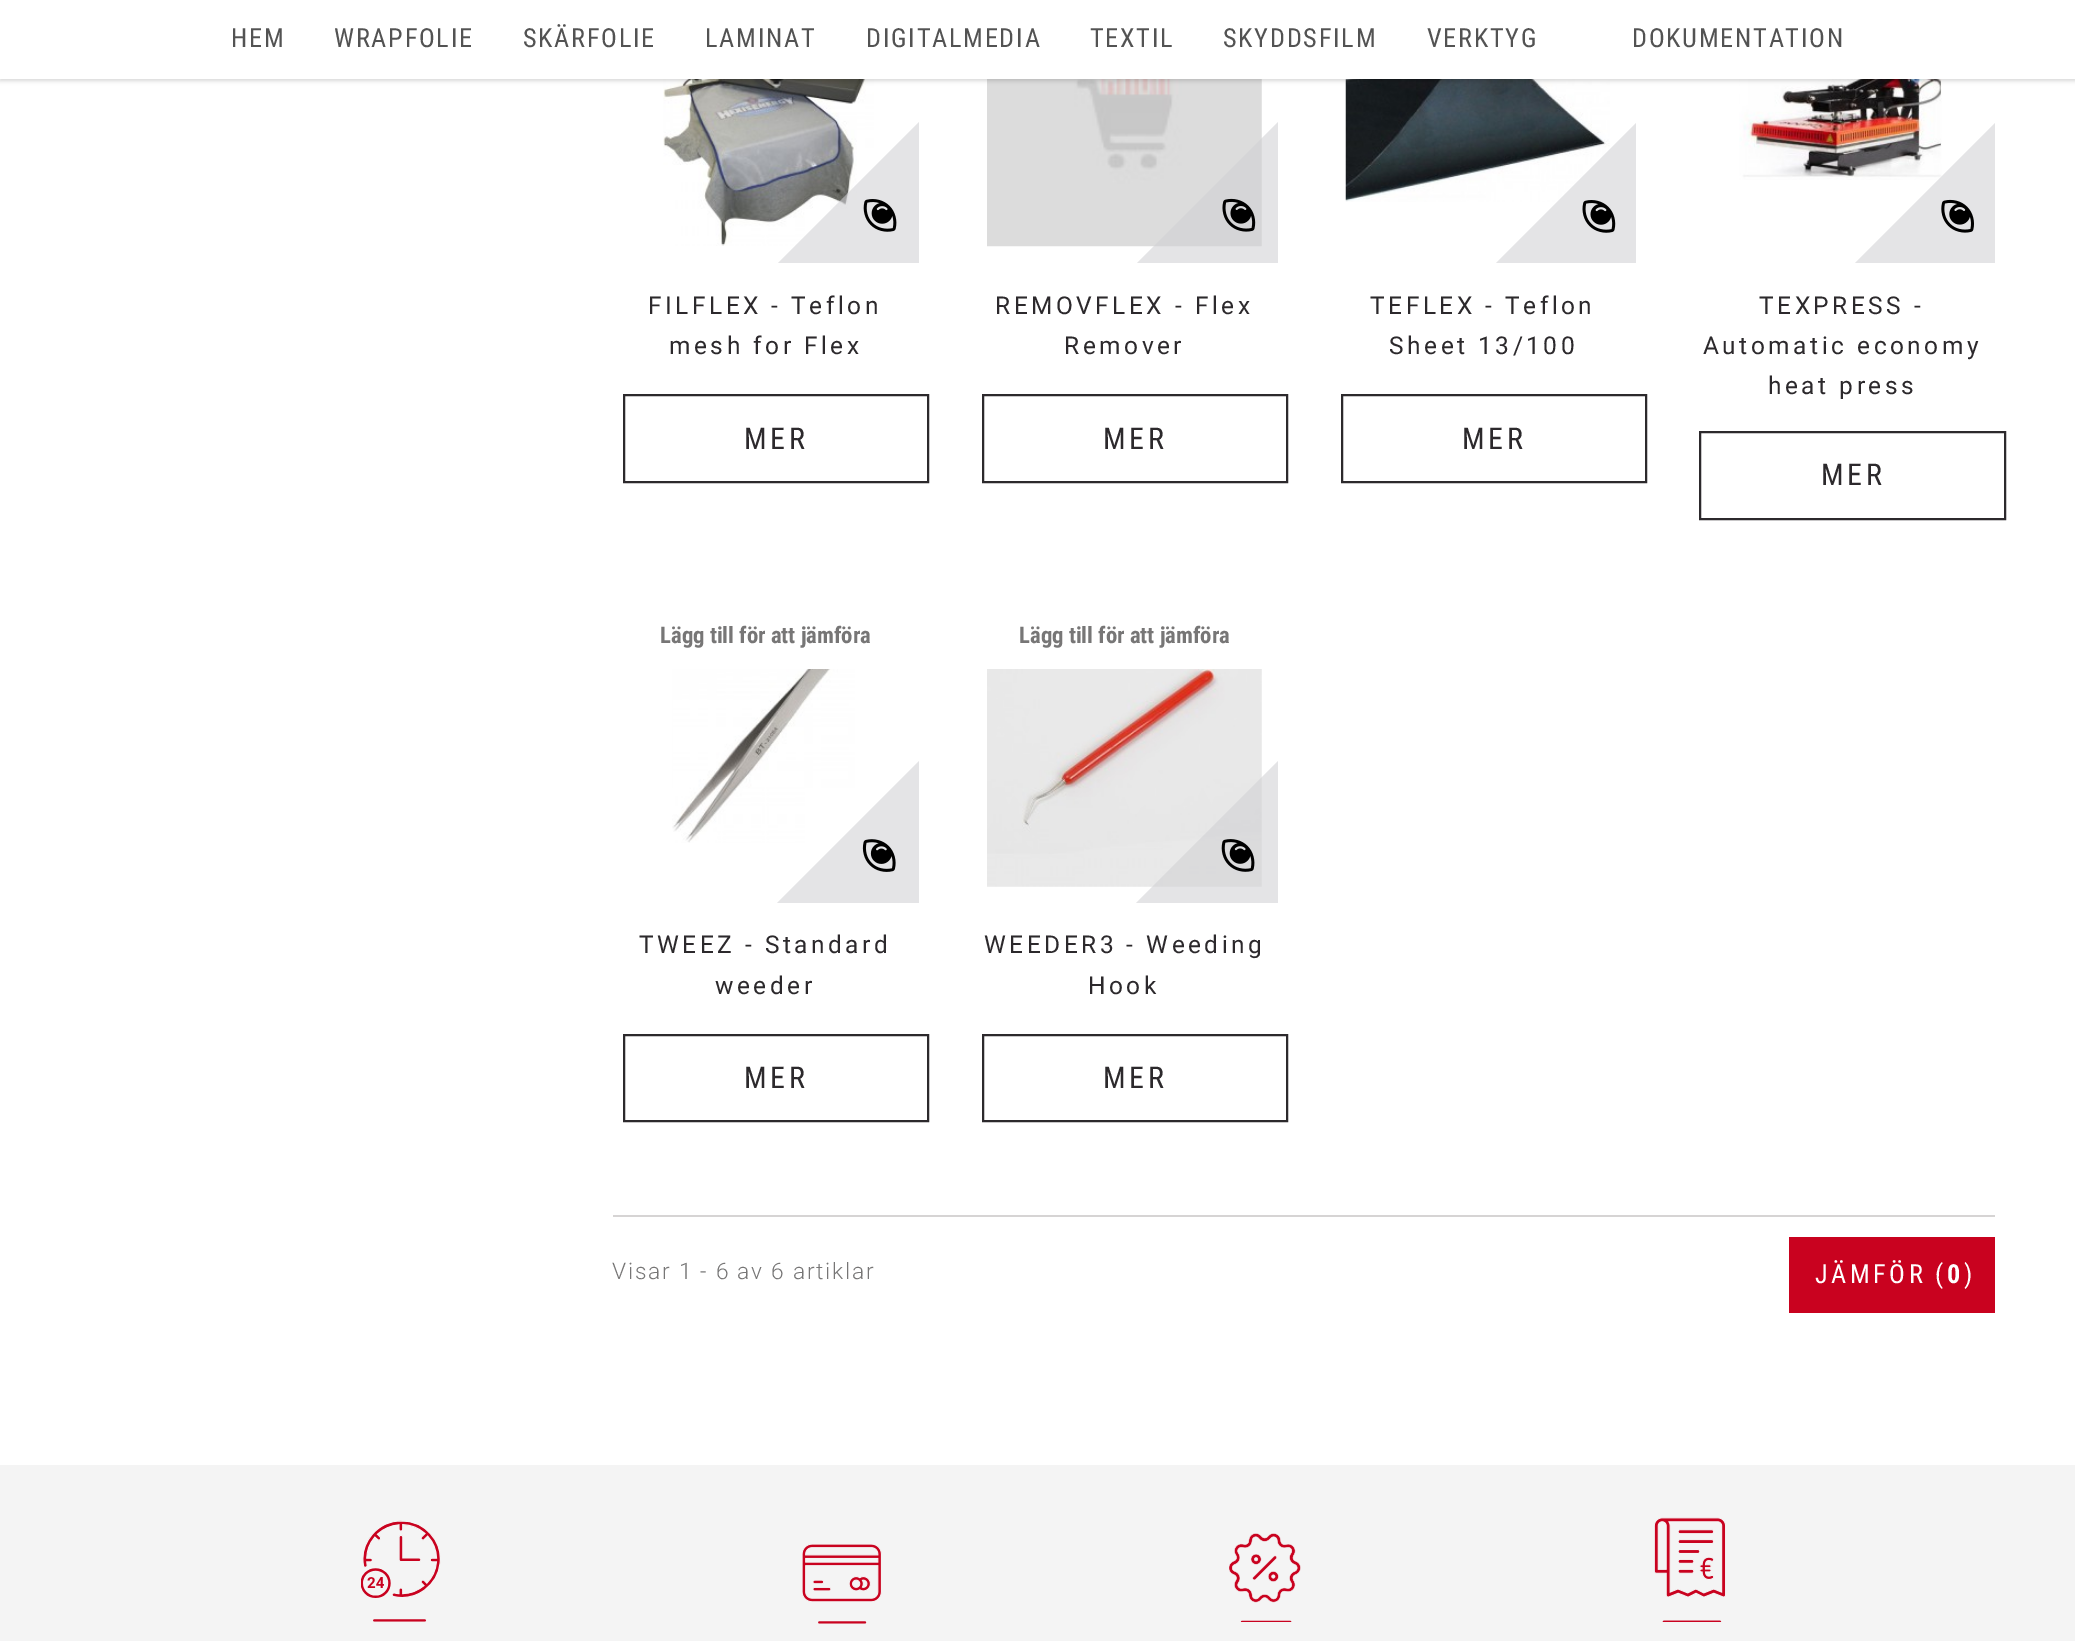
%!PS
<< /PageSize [2075 1641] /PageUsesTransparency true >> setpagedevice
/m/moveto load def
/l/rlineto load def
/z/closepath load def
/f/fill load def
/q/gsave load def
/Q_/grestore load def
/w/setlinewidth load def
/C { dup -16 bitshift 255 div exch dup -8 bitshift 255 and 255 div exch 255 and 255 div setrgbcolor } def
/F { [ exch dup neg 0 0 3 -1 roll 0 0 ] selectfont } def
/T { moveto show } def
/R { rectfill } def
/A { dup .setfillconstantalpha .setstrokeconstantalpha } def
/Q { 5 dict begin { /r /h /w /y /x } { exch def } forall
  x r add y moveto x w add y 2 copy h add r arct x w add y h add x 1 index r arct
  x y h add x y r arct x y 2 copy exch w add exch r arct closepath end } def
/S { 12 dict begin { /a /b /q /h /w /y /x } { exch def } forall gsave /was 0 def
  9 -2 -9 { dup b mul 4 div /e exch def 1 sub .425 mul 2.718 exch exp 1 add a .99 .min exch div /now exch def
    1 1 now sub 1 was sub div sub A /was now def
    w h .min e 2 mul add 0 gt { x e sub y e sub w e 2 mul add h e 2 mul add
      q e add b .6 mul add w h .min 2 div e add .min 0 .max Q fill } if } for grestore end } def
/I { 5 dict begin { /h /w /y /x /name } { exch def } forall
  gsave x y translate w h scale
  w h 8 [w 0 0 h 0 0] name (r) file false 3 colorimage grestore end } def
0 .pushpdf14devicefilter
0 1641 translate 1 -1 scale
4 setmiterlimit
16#FFFFFF C
0 0 2075 1641 R
(1.rgb) 663 79 211 167 I
(3.rgb) 987 79 275 168 I
(5.rgb) 1345 79 265 123 I
(7.rgb) 1739 79 203 101 I
16#000000 C
0 2 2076 79 0 2 .15 S
16#FFFFFF C
0 0 2075 79 R
/RobotoCondensed-Regular 26.25 F
16#535353 C
231 47 m 1.75 0 (HEM) ashow
334 47 m 1.75 0 (WRAPFOLIE) ashow
523 47 m 1.75 0 (SKÄRFOLIE) ashow
705 47 m 1.75 0 (LAMINAT) ashow
866 47 m 1.75 0 (DIGITALMEDIA) ashow
1090 47 m 1.75 0 (TEXTIL) ashow
1223 47 m 1.75 0 (SKYDDSFILM) ashow
1427 47 m 1.75 0 (VERKTYG) ashow
1632 47 m 1.75 0 (DOKUMENTATION) ashow
q
543 0 376 263 rectclip
0.57 A
16#D0D0D3 C
928 113 m 105 105 l -161 161 l -105 -105 l z f
Q_
(2.rgb) 863 199 34 33 I
/Roboto-Regular 24.5 F
16#2C292C C
648 314 m 3.5 0 (FILFLEX - Teflon) ashow
669 354 m 3.5 0 (mesh for Flex) ashow
2 w
624 395 304 87 rectstroke
/RobotoCondensed-Regular 30 F
744 449 m 3.5 0 (MER) ashow
q
901 0 377 263 rectclip
0.57 A
16#D0D0D3 C
1287 113 m 105 105 l -161 161 l -105 -105 l z f
Q_
(4.rgb) 1222 198 34 34 I
/Roboto-Regular 24.5 F
995 314 m 3.5 0 (REMOVFLEX - Flex) ashow
1064 354 m 3.5 0 (Remover) ashow
983 395 304 87 rectstroke
/RobotoCondensed-Regular 30 F
1103 449 m 3.5 0 (MER) ashow
q
1260 0 376 263 rectclip
16#E4E4E6 C
1646 113 m 105 105 l -161 161 l -105 -105 l z f
Q_
(6.rgb) 1582 200 34 33 I
/Roboto-Regular 24.5 F
1370 314 m 3.5 0 (TEFLEX - Teflon) ashow
1389 354 m 3.5 0 (Sheet 13/100) ashow
1342 395 304 87 rectstroke
/RobotoCondensed-Regular 30 F
1462 449 m 3.5 0 (MER) ashow
q
1619 0 376 263 rectclip
0.57 A
16#D0D0D3 C
2005 113 m 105 105 l -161 161 l -105 -105 l z f
Q_
(8.rgb) 1941 199 33 34 I
/Roboto-Regular 24.5 F
1759 314 m 3.5 0 (TEXPRESS -) ashow
1703 354 m 3.5 0 (Automatic economy) ashow
1768 394 m 3.5 0 (heat press) ashow
1700 432 305 87 rectstroke
/RobotoCondensed-Regular 30 F
1821 485 m 3.5 0 (MER) ashow
/RobotoCondensed-Bold 22.75 F
16#777676 C
(Lägg till för att jämföra) 660 643 T
(9.rgb) 672 669 183 174 I
q
543 632 376 271 rectclip
16#E4E4E6 C
928 752 m 105 105 l -161 161 l -105 -105 l z f
Q_
(10.rgb) 862 839 34 33 I
/Roboto-Regular 24.5 F
16#2C292C C
639 953 m 3.5 0 (TWEEZ - Standard) ashow
715 994 m 3.5 0 (weeder) ashow
624 1035 304 86 rectstroke
/RobotoCondensed-Regular 30 F
744 1088 m 3.5 0 (MER) ashow
/RobotoCondensed-Bold 22.75 F
16#777676 C
(Lägg till för att jämföra) 1019 643 T
(11.rgb) 987 669 275 218 I
q
901 632 377 271 rectclip
0.57 A
16#D0D0D3 C
1287 752 m 105 105 l -161 161 l -105 -105 l z f
Q_
(12.rgb) 1221 839 34 33 I
/Roboto-Regular 24.5 F
16#2C292C C
984 953 m 3.5 0 (WEEDER3 - Weeding) ashow
1088 994 m 3.5 0 (Hook) ashow
983 1035 304 86 rectstroke
/RobotoCondensed-Regular 30 F
1103 1088 m 3.5 0 (MER) ashow
16#D6D4D4 C
613 1215 1382 2 R
/Roboto-Light 22.75 F
16#777676 C
612 1279 m 1.75 0 (Visar 1 - 6 av 6 artiklar) ashow
16#C9021F C
1789 1237 206 76 R
/RobotoCondensed-Regular 26.25 F
16#FFFFFF C
1815 1283 m 3.5 0 (JÄMFÖR \() ashow
/RobotoCondensed-Bold 26.25 F
1947 1283 m 3.5 0 (0) ashow
/RobotoCondensed-Regular 26.25 F
1964 1283 m 3.5 0 (\)) ashow
16#F4F4F4 C
0 1465 2075 176 R
(13.rgb) 361 1520 80 102 I
(14.rgb) 802 1544 80 80 I
(15.rgb) 1229 1533 72 89 I
(16.rgb) 1654 1517 72 105 I
.poppdf14devicefilter showpage
